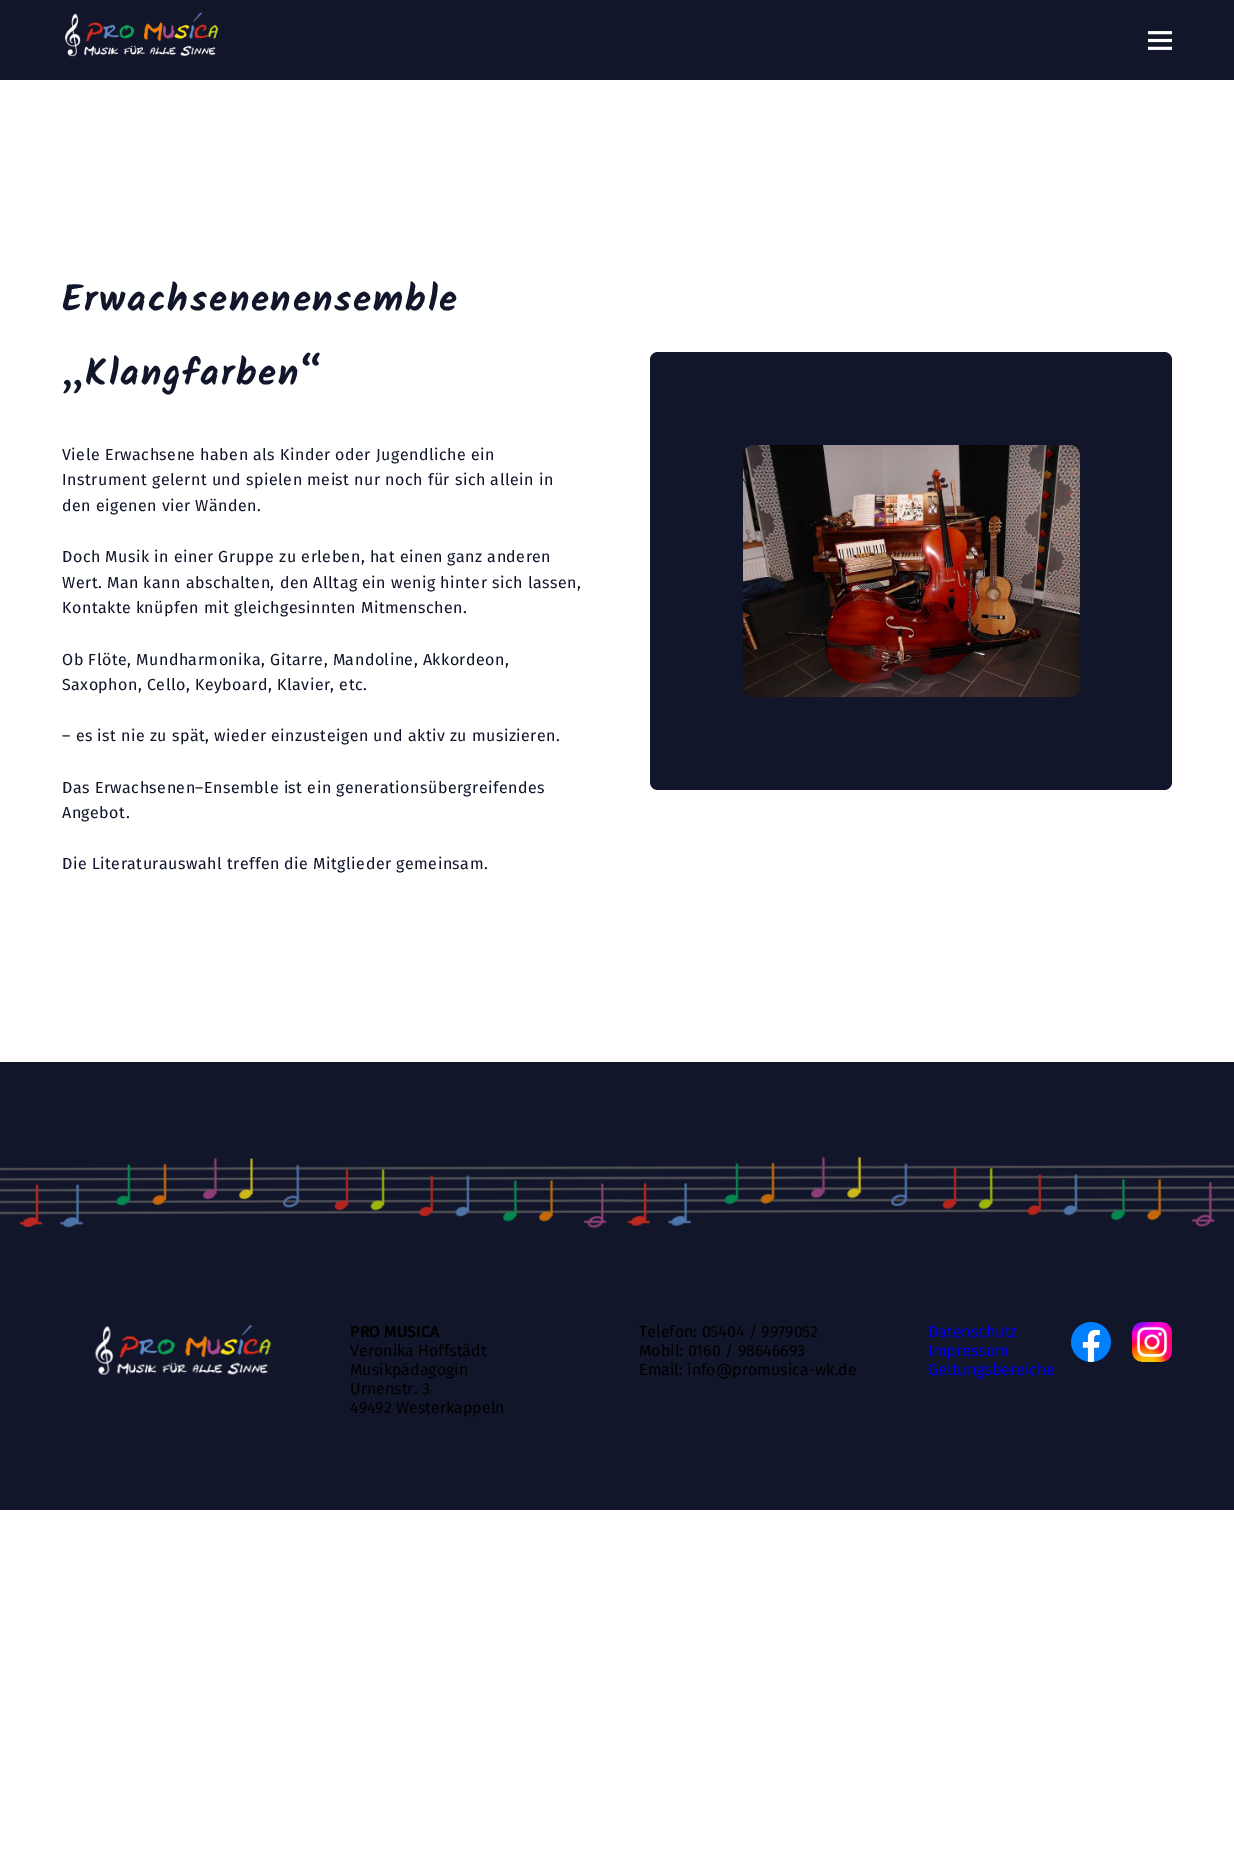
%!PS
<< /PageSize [1234 1851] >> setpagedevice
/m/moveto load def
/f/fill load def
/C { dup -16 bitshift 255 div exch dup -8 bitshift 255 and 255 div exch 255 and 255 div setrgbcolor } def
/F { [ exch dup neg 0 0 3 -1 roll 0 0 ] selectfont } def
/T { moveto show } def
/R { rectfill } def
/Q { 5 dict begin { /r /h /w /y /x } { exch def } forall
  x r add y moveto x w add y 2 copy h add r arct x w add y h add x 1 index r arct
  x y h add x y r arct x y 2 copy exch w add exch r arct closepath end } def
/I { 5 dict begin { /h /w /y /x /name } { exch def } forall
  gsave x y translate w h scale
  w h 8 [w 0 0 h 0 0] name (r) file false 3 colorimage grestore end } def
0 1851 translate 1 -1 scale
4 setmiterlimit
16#FFFFFF C
0 0 1234 1851 R
16#11162B C
0 0 1234 80 R
(1.rgb) 64 12 155 45 I
(2.rgb) 1148 31 24 19 I
/Kalam-Bold 36.75 F
62 311 m 1.8 0 (Erwachsenenensemble) ashow
62 385 m 1.8 0 („Klangfarben“) ashow
/FiraSans-Regular 16 F
62 460 m .48 0 (Viele Erwachsene haben als Kinder oder Jugendliche ein) ashow
62 485 m .48 0 (Instrument gelernt und spielen meist nur noch für sich allein in) ashow
62 511 m .48 0 (den eigenen vier Wänden.) ashow
62 562 m .48 0 (Doch Musik in einer Gruppe zu erleben, hat einen ganz anderen) ashow
62 588 m .48 0 (Wert. Man kann abschalten, den Alltag ein wenig hinter sich lassen,) ashow
62 613 m .48 0 (Kontakte knüpfen mit gleichgesinnten Mitmenschen.) ashow
62 665 m .48 0 (Ob Flöte, Mundharmonika, Gitarre, Mandoline, Akkordeon,) ashow
62 690 m .48 0 (Saxophon, Cello, Keyboard, Klavier, etc.) ashow
62 741 m .48 0 (– es ist nie zu spät, wieder einzusteigen und aktiv zu musizieren.) ashow
62 793 m .48 0 (Das Erwachsenen–Ensemble ist ein generationsübergreifendes) ashow
62 818 m .48 0 (Angebot.) ashow
62 869 m .48 0 (Die Literaturauswahl treffen die Mitglieder gemeinsam.) ashow
650 352 522 438 8 Q f
(3.rgb) 743 445 337 252 I
0 1062 1234 448 R
(4.rgb) 0 1156 1234 73 I
(5.rgb) 94 1324 178 52 I
/FiraSans-SemiBold 16 F
16#000000 C
(PRO MUSICA) 350 1337 T
/FiraSans-Regular 16 F
(Veronika Hoffstädt) 350 1356 T
(Musikpädagogin) 350 1375 T
(Urnenstr. 3) 350 1394 T
(49492 Westerkappeln) 350 1413 T
(Telefon: 05404 / 9979052) 639 1337 T
(Mobil: 0160 / 98646693) 639 1356 T
(Email: info@promusica-wk.de) 639 1375 T
16#0000EE C
(Datenschutz) 928 1337 T
(Impressum) 928 1356 T
(Geltungsbereiche) 928 1375 T
(6.rgb) 1071 1322 40 40 I
(7.rgb) 1132 1322 40 40 I
showpage
